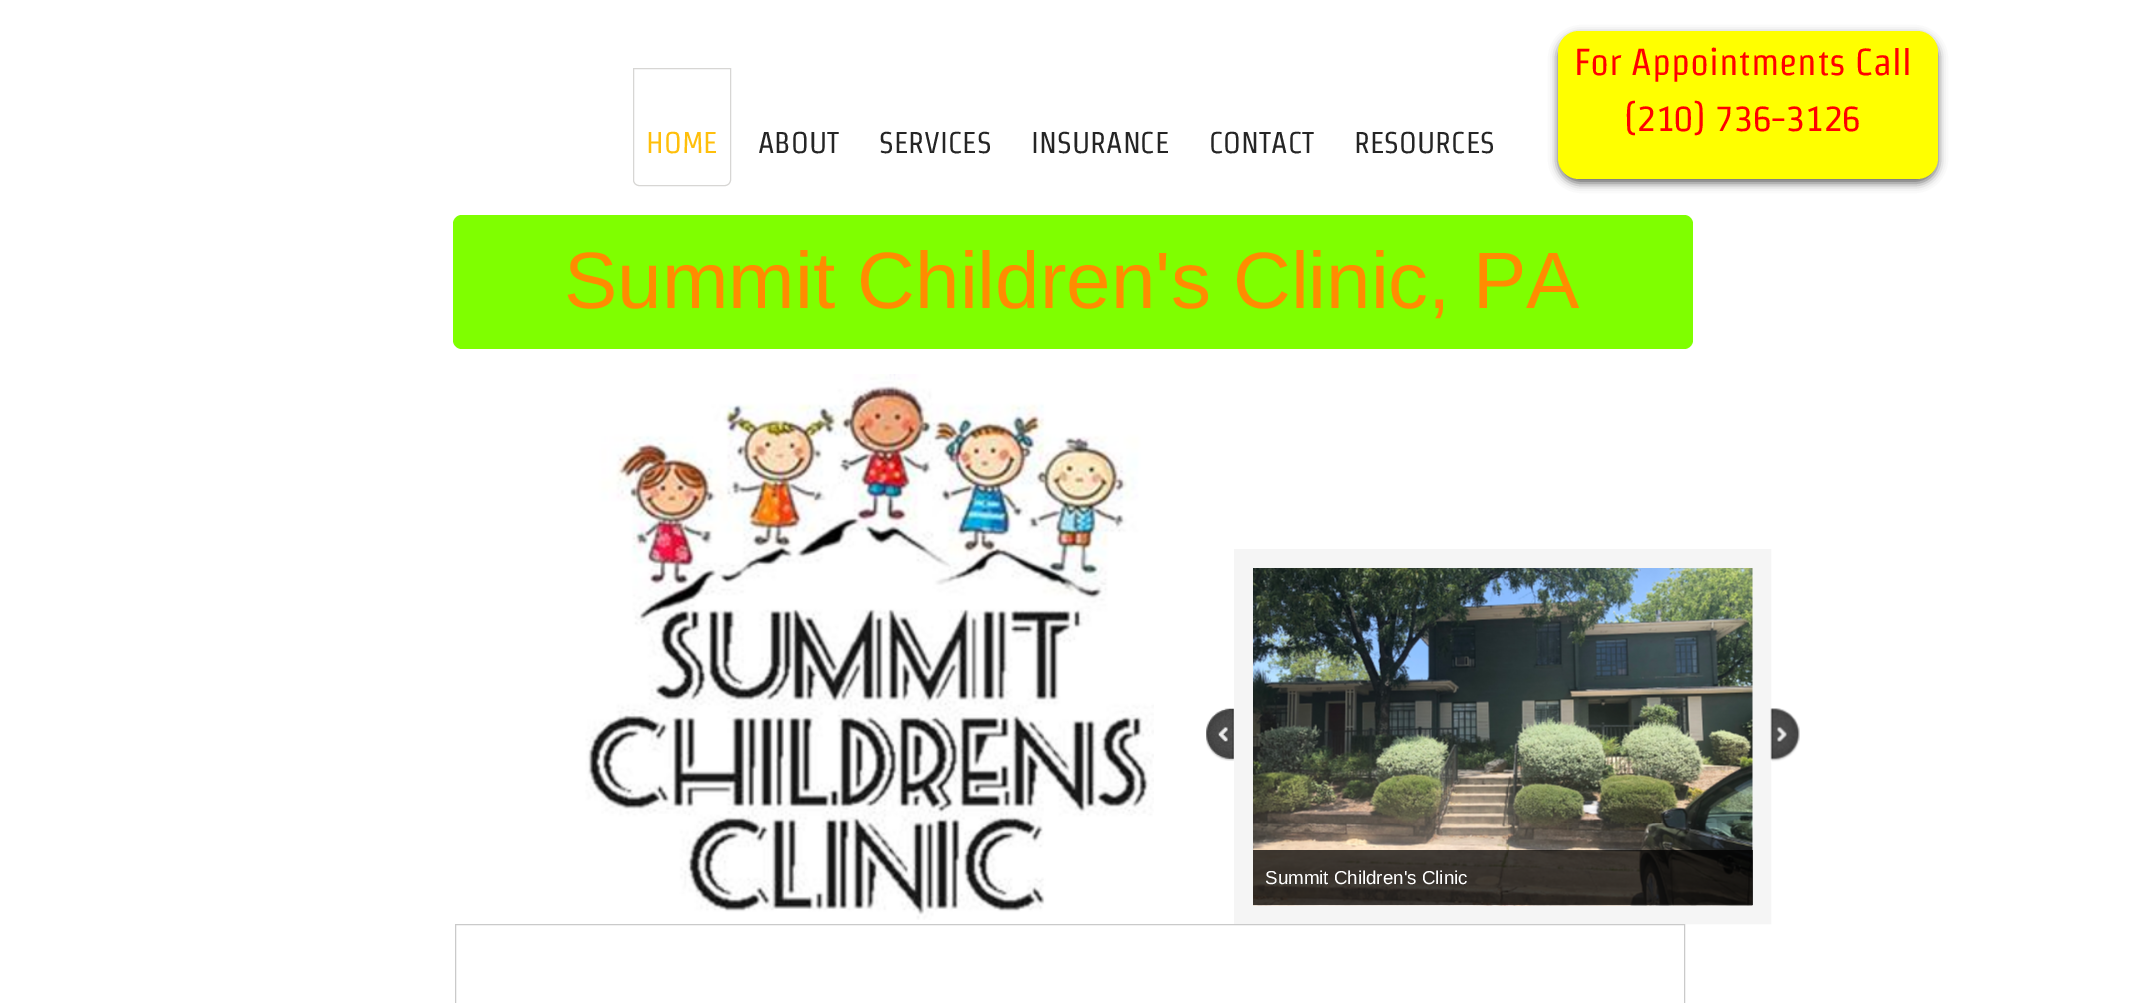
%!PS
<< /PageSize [2144 1003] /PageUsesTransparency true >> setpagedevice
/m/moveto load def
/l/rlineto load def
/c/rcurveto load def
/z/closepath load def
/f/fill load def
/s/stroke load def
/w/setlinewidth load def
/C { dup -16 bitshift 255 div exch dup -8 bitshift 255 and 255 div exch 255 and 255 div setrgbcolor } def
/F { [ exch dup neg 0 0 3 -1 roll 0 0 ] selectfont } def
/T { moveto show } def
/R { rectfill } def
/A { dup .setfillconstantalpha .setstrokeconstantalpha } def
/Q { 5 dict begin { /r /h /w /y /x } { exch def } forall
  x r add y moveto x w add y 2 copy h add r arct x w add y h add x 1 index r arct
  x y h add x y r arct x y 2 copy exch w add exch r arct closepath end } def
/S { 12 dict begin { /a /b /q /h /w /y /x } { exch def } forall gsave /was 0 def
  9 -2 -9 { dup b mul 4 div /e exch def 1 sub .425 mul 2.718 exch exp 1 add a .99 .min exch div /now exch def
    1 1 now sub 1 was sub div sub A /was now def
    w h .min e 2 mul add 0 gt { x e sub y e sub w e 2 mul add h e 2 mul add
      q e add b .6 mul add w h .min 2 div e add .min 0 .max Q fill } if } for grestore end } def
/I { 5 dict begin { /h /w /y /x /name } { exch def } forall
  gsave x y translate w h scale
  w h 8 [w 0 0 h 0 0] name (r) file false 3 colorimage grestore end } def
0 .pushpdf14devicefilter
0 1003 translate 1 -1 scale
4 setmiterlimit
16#FFFFFF C
0 0 2144 1003 R
16#323232 C
1558 35 380 148 21 4.5 .75 S
16#FFFF00 C
1558 31 380 148 21 Q f
/Strait-Regular 37.5 F
16#FF0000 C
(For Appointments Call) 1574 75 T
(\(210\) 736-3126) 1624 131 T
16#D7D6D4 C
633.5 68.5 m 97 0 l 0 111.5 l 0 3 -2.5 5.5 -5.5 5.5 c -86 0 l -3 0 -5.5 -2.5 -5.5 -5.5 c z s
/Strait-Regular 30 F
16#FFBF0B C
(HOME) 646 153 T
16#252525 C
(ABOUT) 758 153 T
(SERVICES) 879 153 T
(INSURANCE) 1031 153 T
(CONTACT) 1209 153 T
(RESOURCES) 1354 153 T
16#7FFF00 C
453 215 1240 134 9 Q f
/LiberationSans-Regular 80 F
16#FF8C00 C
(Summit Children's Clinic, PA) 564 308 T
(1.rgb) 585 374 569 546 I
(2.rgb) 1206 708 28 53 I
16#F5F5F5 C
19 w
1243.5 558.5 518 356 rectstroke
(3.rgb) 1770 708 30 54 I
(4.rgb) 1253 568 500 338 I
0.75 A
16#000000 C
1253 850 500 55 R
/LiberationSans-Regular 18.75 F
1 A
16#FFFFFF C
(Summit Children's Clinic) 1265 884 T
16#CACACA C
1 w
455.5 924.5 1229 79 rectstroke
.poppdf14devicefilter showpage
